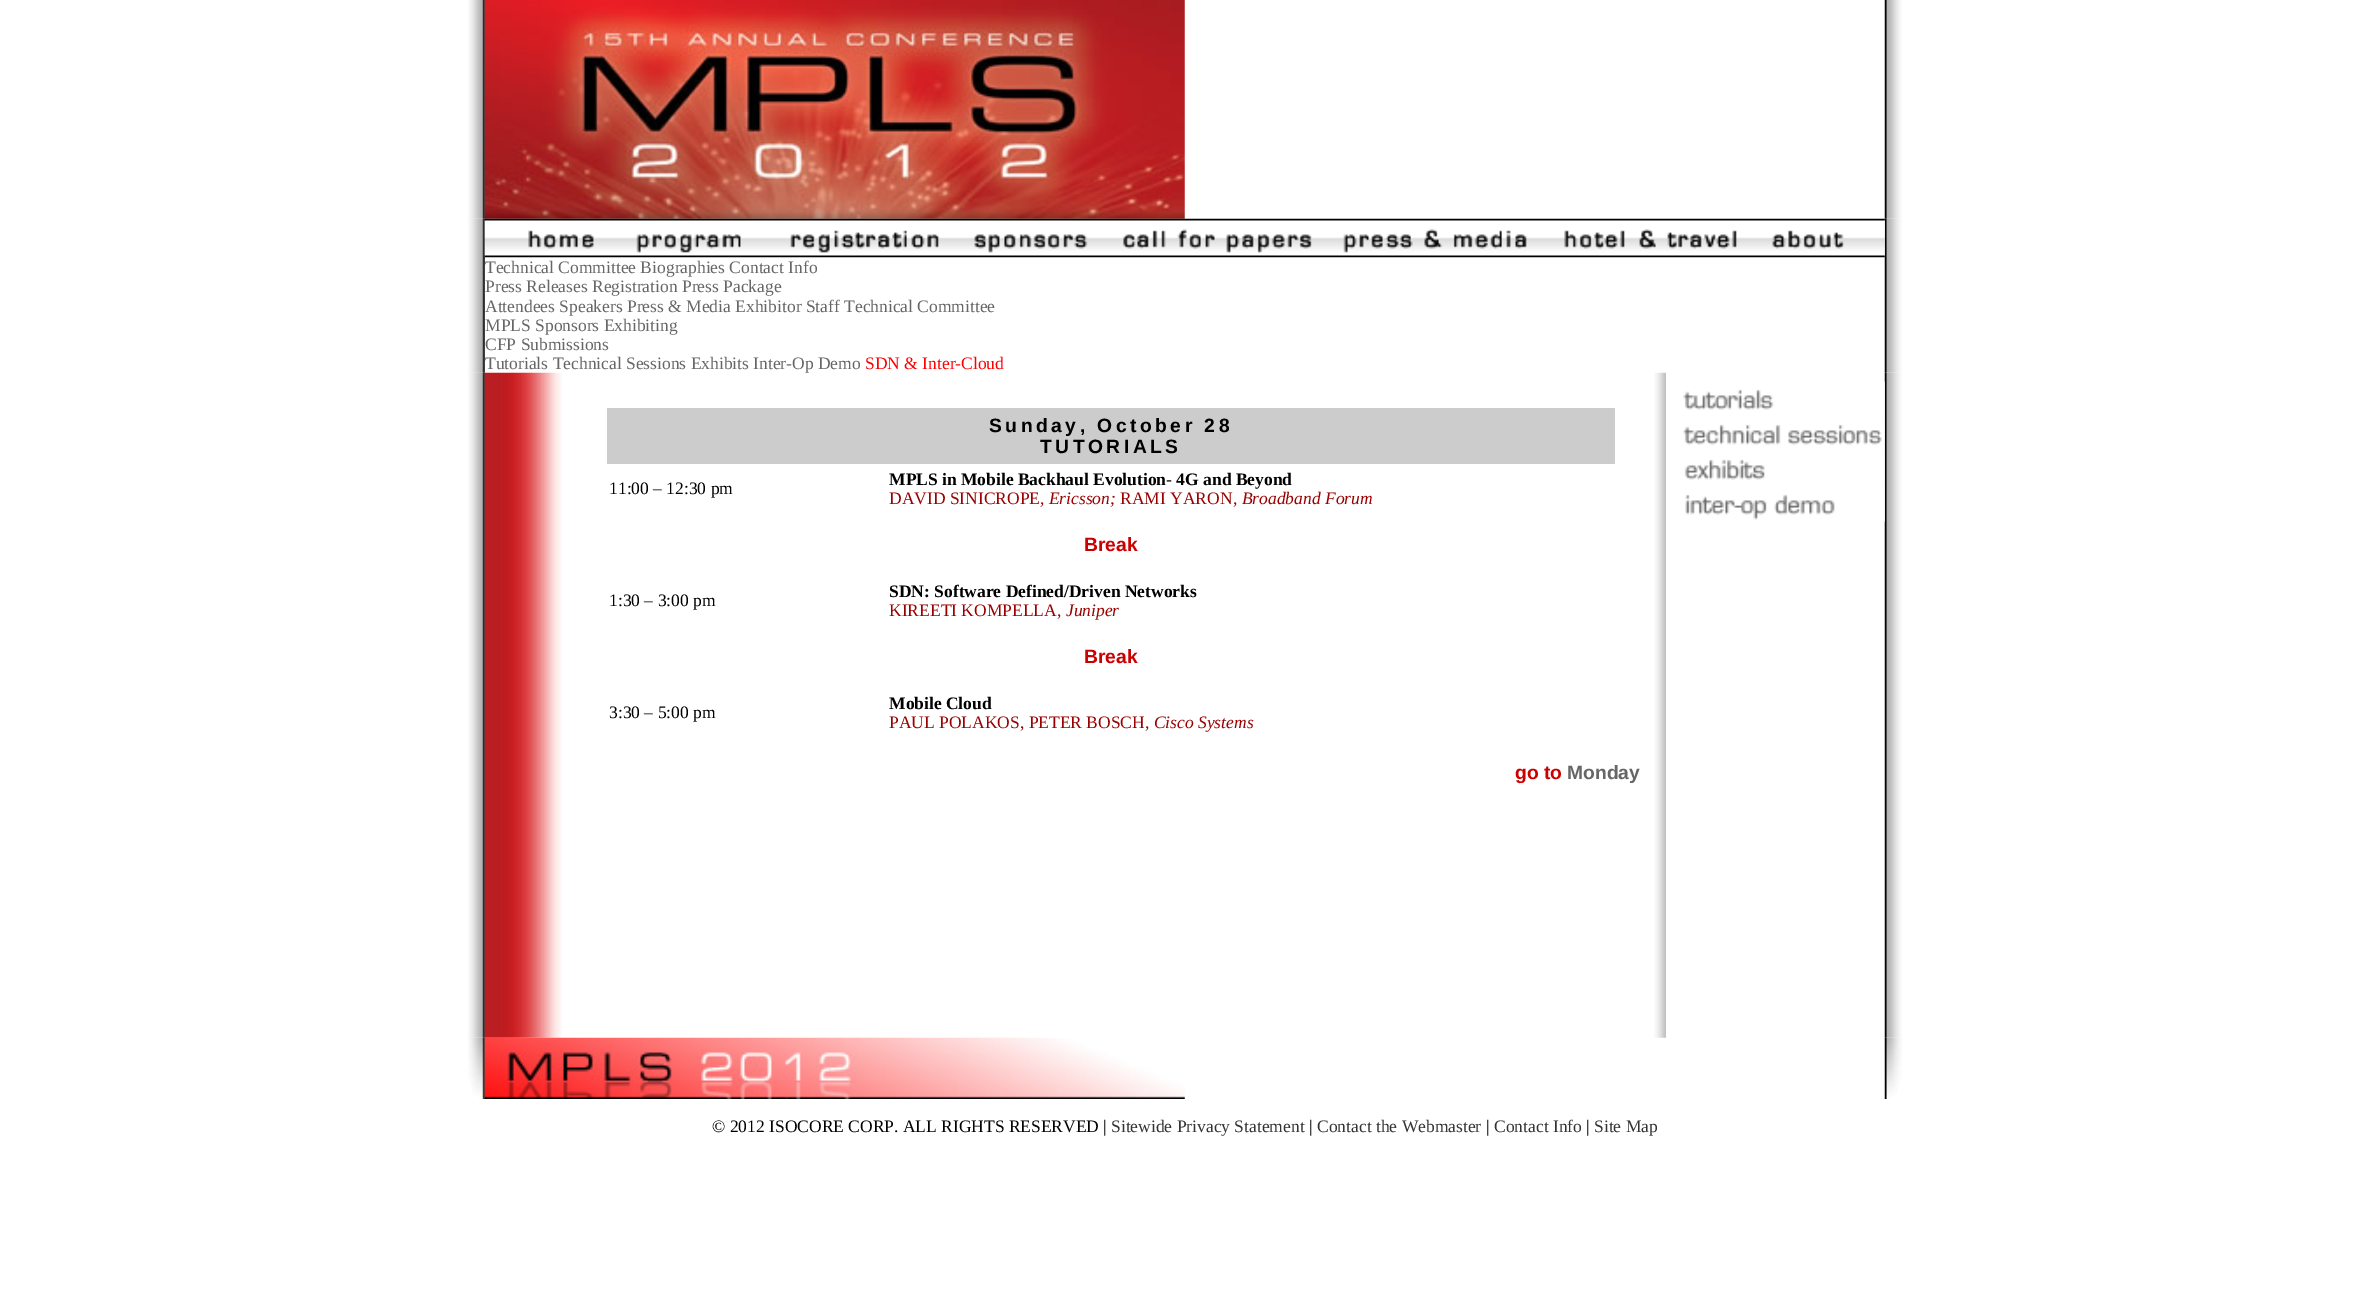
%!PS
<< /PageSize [2368 1300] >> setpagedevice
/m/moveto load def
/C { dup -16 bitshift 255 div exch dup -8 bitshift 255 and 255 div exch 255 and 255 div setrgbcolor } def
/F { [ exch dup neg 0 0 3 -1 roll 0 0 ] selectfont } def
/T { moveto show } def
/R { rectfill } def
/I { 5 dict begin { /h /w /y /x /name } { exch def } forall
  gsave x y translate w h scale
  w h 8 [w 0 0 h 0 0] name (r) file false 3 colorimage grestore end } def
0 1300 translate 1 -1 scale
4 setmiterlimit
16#FFFFFF C
0 0 2368 1300 R
(1.rgb) 468 0 17 219 I
(4.rgb) 468 218 17 155 I
(2.rgb) 484 0 701 219 I
(3.rgb) 1884 0 18 219 I
(6.rgb) 1884 218 18 155 I
(5.rgb) 484 218 1401 40 I
/LiberationSerif-Regular 17.5 F
16#666666 C
(Technical Committee Biographies Contact Info) 485 273 T
(Press Releases Registration Press Package) 485 292 T
(Attendees Speakers Press & Media Exhibitor Staff Technical Committee) 485 312 T
(MPLS Sponsors Exhibiting) 485 331 T
(CFP Submissions) 485 350 T
(7.rgb) 468 372 17 666 I
(8.rgb) 484 372 78 666 I
(Tutorials Technical Sessions Exhibits Inter-Op Demo) 485 369 T
16#FF0000 C
(SDN & Inter-Cloud) 865 369 T
(9.rgb) 1654 372 12 666 I
16#CCCCCC C
607 408 1008 56 R
/LiberationSans-Bold 19.25 F
16#000000 C
989 432 m 3.5 0 (Sunday, October 28) ashow
1040 453 m 3.5 0 (TUTORIALS) ashow
/LiberationSerif-Regular 17.5 F
(11:00 – 12:30 pm) 609 494 T
/LiberationSerif-Bold 17.5 F
(MPLS in Mobile Backhaul Evolution- 4G and Beyond) 889 485 T
/LiberationSerif-Regular 17.5 F
16#990000 C
(DAVID SINICROPE) 889 504 T
/LiberationSerif-Italic 17.5 F
(, Ericsson;) 1040 504 T
/LiberationSerif-Regular 17.5 F
(RAMI YARON) 1120 504 T
/LiberationSerif-Italic 17.5 F
(, Broadband Forum) 1233 504 T
/LiberationSans-Bold 19.25 F
16#CC0000 C
(Break) 1084 551 T
/LiberationSerif-Regular 17.5 F
16#000000 C
(1:30 – 3:00 pm) 609 606 T
/LiberationSerif-Bold 17.5 F
(SDN: Software Defined/Driven Networks) 889 597 T
/LiberationSerif-Regular 17.5 F
16#990000 C
(KIREETI KOMPELLA) 889 616 T
/LiberationSerif-Italic 17.5 F
(, Juniper) 1057 616 T
/LiberationSans-Bold 19.25 F
16#CC0000 C
(Break) 1084 663 T
/LiberationSerif-Regular 17.5 F
16#000000 C
(3:30 – 5:00 pm) 609 718 T
/LiberationSerif-Bold 17.5 F
(Mobile Cloud) 889 709 T
/LiberationSerif-Regular 17.5 F
16#990000 C
(PAUL POLAKOS, PETER BOSCH) 889 728 T
/LiberationSerif-Italic 17.5 F
(, Cisco Systems) 1145 728 T
/LiberationSans-Bold 19.25 F
16#CC0000 C
(go to) 1515 779 T
16#666666 C
(Monday) 1567 779 T
(14.rgb) 1884 372 18 666 I
(10.rgb) 1683 381 202 36 I
(11.rgb) 1683 416 202 36 I
(12.rgb) 1684 451 201 36 I
(13.rgb) 1685 486 200 36 I
(15.rgb) 468 1037 17 62 I
(16.rgb) 484 1037 701 62 I
(17.rgb) 1884 1037 18 62 I
/LiberationSerif-Regular 17.5 F
16#000000 C
(© 2012 ISOCORE CORP. ALL RIGHTS RESERVED |) 712 1132 T
16#333333 C
(Sitewide Privacy Statement) 1111 1132 T
16#000000 C
(|) 1309 1132 T
16#333333 C
(Contact the Webmaster) 1317 1132 T
16#000000 C
(|) 1486 1132 T
16#333333 C
(Contact Info) 1494 1132 T
16#000000 C
(|) 1586 1132 T
16#333333 C
(Site Map) 1594 1132 T
showpage
